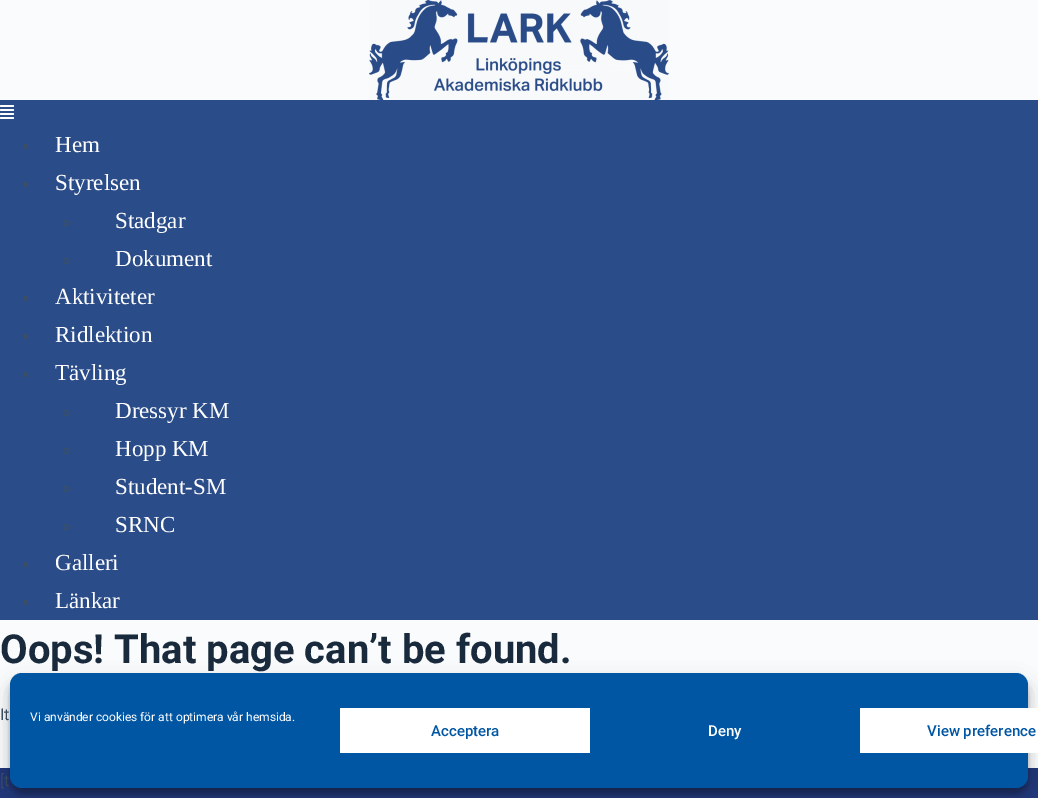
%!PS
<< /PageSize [1038 798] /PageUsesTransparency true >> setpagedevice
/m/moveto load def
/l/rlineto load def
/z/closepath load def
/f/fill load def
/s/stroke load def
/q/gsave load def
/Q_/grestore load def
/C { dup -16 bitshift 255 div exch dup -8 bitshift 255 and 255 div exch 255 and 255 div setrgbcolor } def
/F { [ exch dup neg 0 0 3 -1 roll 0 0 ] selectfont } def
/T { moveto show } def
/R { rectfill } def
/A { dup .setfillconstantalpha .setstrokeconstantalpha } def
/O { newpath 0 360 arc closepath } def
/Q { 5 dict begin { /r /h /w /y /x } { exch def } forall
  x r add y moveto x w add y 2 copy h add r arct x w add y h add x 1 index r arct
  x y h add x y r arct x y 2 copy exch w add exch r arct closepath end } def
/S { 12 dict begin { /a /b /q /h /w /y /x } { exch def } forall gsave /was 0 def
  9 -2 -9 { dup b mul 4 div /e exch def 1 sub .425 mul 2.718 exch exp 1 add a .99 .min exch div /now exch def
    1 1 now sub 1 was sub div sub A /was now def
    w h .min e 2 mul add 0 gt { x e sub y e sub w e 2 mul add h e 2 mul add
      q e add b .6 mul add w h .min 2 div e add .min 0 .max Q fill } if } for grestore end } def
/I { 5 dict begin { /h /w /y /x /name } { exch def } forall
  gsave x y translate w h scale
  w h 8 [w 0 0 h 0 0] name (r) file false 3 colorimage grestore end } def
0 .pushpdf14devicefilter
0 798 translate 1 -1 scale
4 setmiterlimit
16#FAFBFC C
0 0 1038 798 R
(1.rgb) 369 0 300 100 I
16#2A4C88 C
0 100 1038 520 R
(2.rgb) 0 105 14 14 I
16#3A4F66 C
25.5 146.5 2.5 O f
/LiberationSerif-Regular 23 F
16#FFFFFF C
(Hem) 55 152 T
16#3A4F66 C
25.5 184.5 2.5 O f
16#FFFFFF C
(Styrelsen) 55 190 T
16#3A4F66 C
66 223 2.5 O s
16#FFFFFF C
(Stadgar) 115 228 T
16#3A4F66 C
66 261 2.5 O s
16#FFFFFF C
(Dokument) 115 266 T
16#3A4F66 C
25.5 298.5 2.5 O f
16#FFFFFF C
(Aktiviteter) 55 304 T
16#3A4F66 C
25.5 336.5 2.5 O f
16#FFFFFF C
(Ridlektion) 55 342 T
16#3A4F66 C
25.5 374.5 2.5 O f
16#FFFFFF C
(Tävling) 55 380 T
16#3A4F66 C
66 413 2.5 O s
16#FFFFFF C
(Dressyr KM) 115 418 T
16#3A4F66 C
66 451 2.5 O s
16#FFFFFF C
(Hopp KM) 115 456 T
16#3A4F66 C
66 489 2.5 O s
16#FFFFFF C
(Student-SM) 115 494 T
16#3A4F66 C
66 527 2.5 O s
16#FFFFFF C
(SRNC) 115 532 T
16#3A4F66 C
25.5 564.5 2.5 O f
16#FFFFFF C
(Galleri) 55 570 T
16#3A4F66 C
25.5 602.5 2.5 O f
16#FFFFFF C
(Länkar) 55 608 T
/Roboto-Bold 40 F
16#192A3D C
(Oops! That page can’t be found.) 0 663 T
/Roboto-Regular 16 F
16#3A4F66 C
(It) 0 720 T
q 0 768 m 1038 0 l 0 30 l -1038 0 l z clip newpath
<< /ShadingType 2 /ColorSpace /DeviceRGB /Coords [519 768 519 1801] /Extend [true true] /Function << /FunctionType 2 /Domain [0 1] /C0 [.129 .208 .475] /C1 [.451 .663 .937] /N 1 >> >> shfill Q_
([t) 0 786 T
16#000000 C
10 679 1018 115 12 3 .23 S
10 683 1018 115 12 10 .19 S
16#0056A3 C
10 673 1018 115 12 Q f
/Roboto-Regular 12 F
16#FFFFFF C
(Vi använder cookies för att optimera vår hemsida.) 30 721 T
340 708 250 45 R
/Roboto-Medium 15 F
16#0056A3 C
(Acceptera) 431 736 T
16#FFFFFF C
(Deny) 708 736 T
860 708 178 45 R
16#0056A3 C
(View preference) 927 736 T
.poppdf14devicefilter showpage
